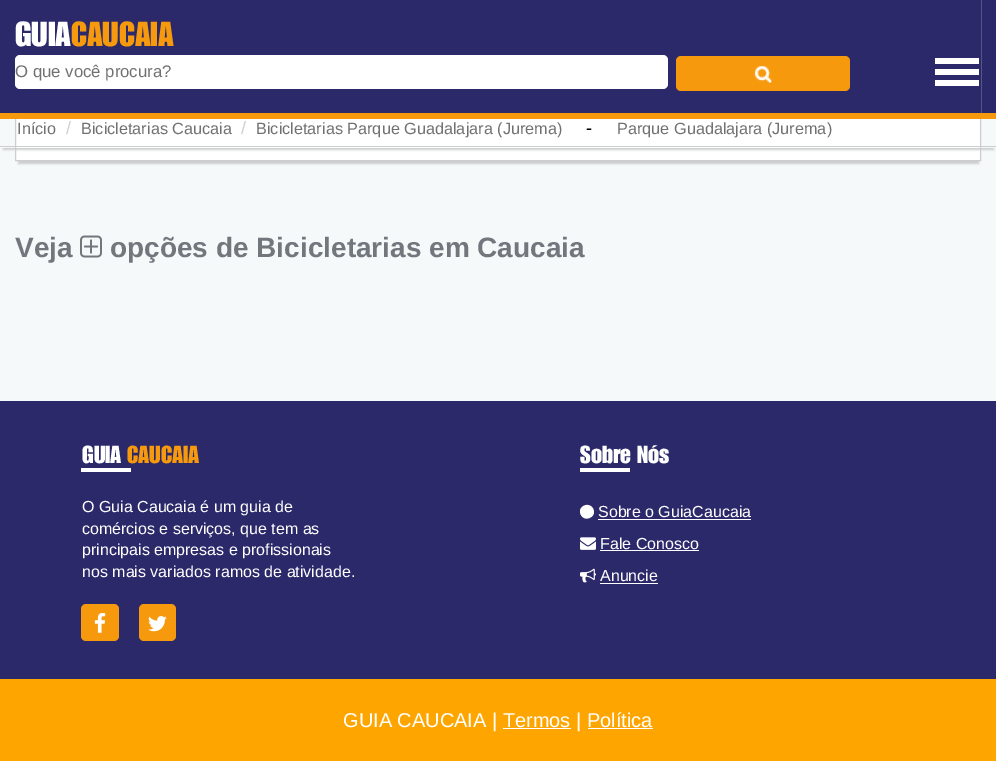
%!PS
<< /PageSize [996 761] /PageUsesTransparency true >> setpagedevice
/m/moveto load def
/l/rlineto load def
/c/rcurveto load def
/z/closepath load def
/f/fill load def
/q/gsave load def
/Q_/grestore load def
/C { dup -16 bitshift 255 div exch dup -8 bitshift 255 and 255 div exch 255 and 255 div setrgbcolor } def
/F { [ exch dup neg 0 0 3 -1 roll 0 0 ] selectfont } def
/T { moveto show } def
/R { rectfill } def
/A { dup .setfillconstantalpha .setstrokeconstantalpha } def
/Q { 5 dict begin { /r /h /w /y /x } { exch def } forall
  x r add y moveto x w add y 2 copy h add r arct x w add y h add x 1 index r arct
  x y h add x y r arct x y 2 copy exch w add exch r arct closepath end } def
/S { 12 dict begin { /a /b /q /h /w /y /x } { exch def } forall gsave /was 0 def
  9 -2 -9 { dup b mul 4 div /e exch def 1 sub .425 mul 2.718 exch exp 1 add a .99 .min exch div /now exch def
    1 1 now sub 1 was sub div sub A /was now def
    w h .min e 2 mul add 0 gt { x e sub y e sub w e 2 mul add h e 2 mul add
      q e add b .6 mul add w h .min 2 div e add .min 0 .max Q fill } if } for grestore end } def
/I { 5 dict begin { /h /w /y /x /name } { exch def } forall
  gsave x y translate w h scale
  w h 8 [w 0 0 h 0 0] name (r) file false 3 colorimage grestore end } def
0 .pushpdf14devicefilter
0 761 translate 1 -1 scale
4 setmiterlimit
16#2B296A C
0 0 996 761 R
16#F6F9FA C
0 119 996 282 R
16#CBCDCE C
18 -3 961 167 0 1 1 S
16#FFFFFF C
16 119 964 41 R
16#CBCDCE C
15.5 -.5 965 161 rectstroke
q
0 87 m 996 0 l 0 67 l -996 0 l z 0 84 m 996 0 l 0 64 l -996 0 l z eoclip newpath
3 91 991 59 0 1 1 S
Q_
16#2B296A C
15 0 966 113 R
16#F6990D C
0 113 996 6 R
/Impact-Medium 34 F
16#FFFFFF C
(GUIA) 15 46 T
16#F6990D C
(CAUCAIA) 71 46 T
16#FFFFFF C
15 55 653 34 5 Q f
/LiberationSans-Regular 16.75 F
16#717171 C
(O que você procura?) 15 77 T
16#F6990D C
676 56 174 35 5 Q f
(1.rgb) 754 66 18 17 I
16#FFFFFF C
935 58 44 6 R
935 69 44 6 R
935 80 44 6 R
16#CBCDCE C
0 146 996 1 R
/LiberationSans-Regular 16.25 F
16#717171 C
(Início) 17 134 T
/LiberationSans-Regular 18 F
16#CFCFCF C
(/) 66 134 T
/LiberationSans-Regular 16.25 F
16#717171 C
(Bicicletarias Caucaia) 81 134 T
/LiberationSans-Regular 18 F
16#CFCFCF C
(/) 241 134 T
/LiberationSans-Regular 16.25 F
16#717171 C
(Bicicletarias Parque Guadalajara \(Jurema\)) 256 134 T
/LiberationSans-Regular 18 F
16#000000 C
(-) 586 134 T
/LiberationSans-Regular 16.25 F
16#717171 C
(Parque Guadalajara \(Jurema\)) 617 134 T
/LiberationSans-Bold 28 F
16#71777C C
(Veja) 15 257 T
(2.rgb) 80 235 22 23 I
(opções de Bicicletarias em Caucaia) 110 257 T
/Impact-Medium 24 F
16#FFFFFF C
(GUIA) 82 463 T
16#F6990D C
(CAUCAIA) 127 463 T
16#FFFFFF C
81 468 50 4 R
/LiberationSans-Regular 16 F
(O Guia Caucaia é um guia de) 82 512 T
(comércios e serviços, que tem as) 82 534 T
(principais empresas e profissionais) 82 555 T
(nos mais variados ramos de atividade.) 82 577 T
16#F6990D C
81 604 38 37 5 Q f
(3.rgb) 94 613 12 20 I
139 604 37 37 5 Q f
(4.rgb) 148 616 19 16 I
/Impact-Medium 24 F
16#FFFFFF C
(Sobre Nós) 580 463 T
580 468 50 4 R
593 508.5 m 4.5 7.5 -7.5 14.5 -12 6.5 c -4.5 -7.5 7 -14.5 12 -6.5 c z f
/LiberationSans-Regular 16 F
(Sobre o GuiaCaucaia) 598 517 T
598 519 153 1 R
(5.rgb) 580 537 16 13 I
(Fale Conosco) 600 549 T
600 550 99 1 R
(6.rgb) 580 568 16 15 I
(Anuncie) 600 581 T
600 583 58 1 R
16#FFA500 C
0 679 996 82 R
/LiberationSans-Regular 20 F
16#FFFFFF C
(GUIA CAUCAIA | Termos | Política) 343 727 T
503 728 68 1 R
588 728 65 1 R
.poppdf14devicefilter showpage
